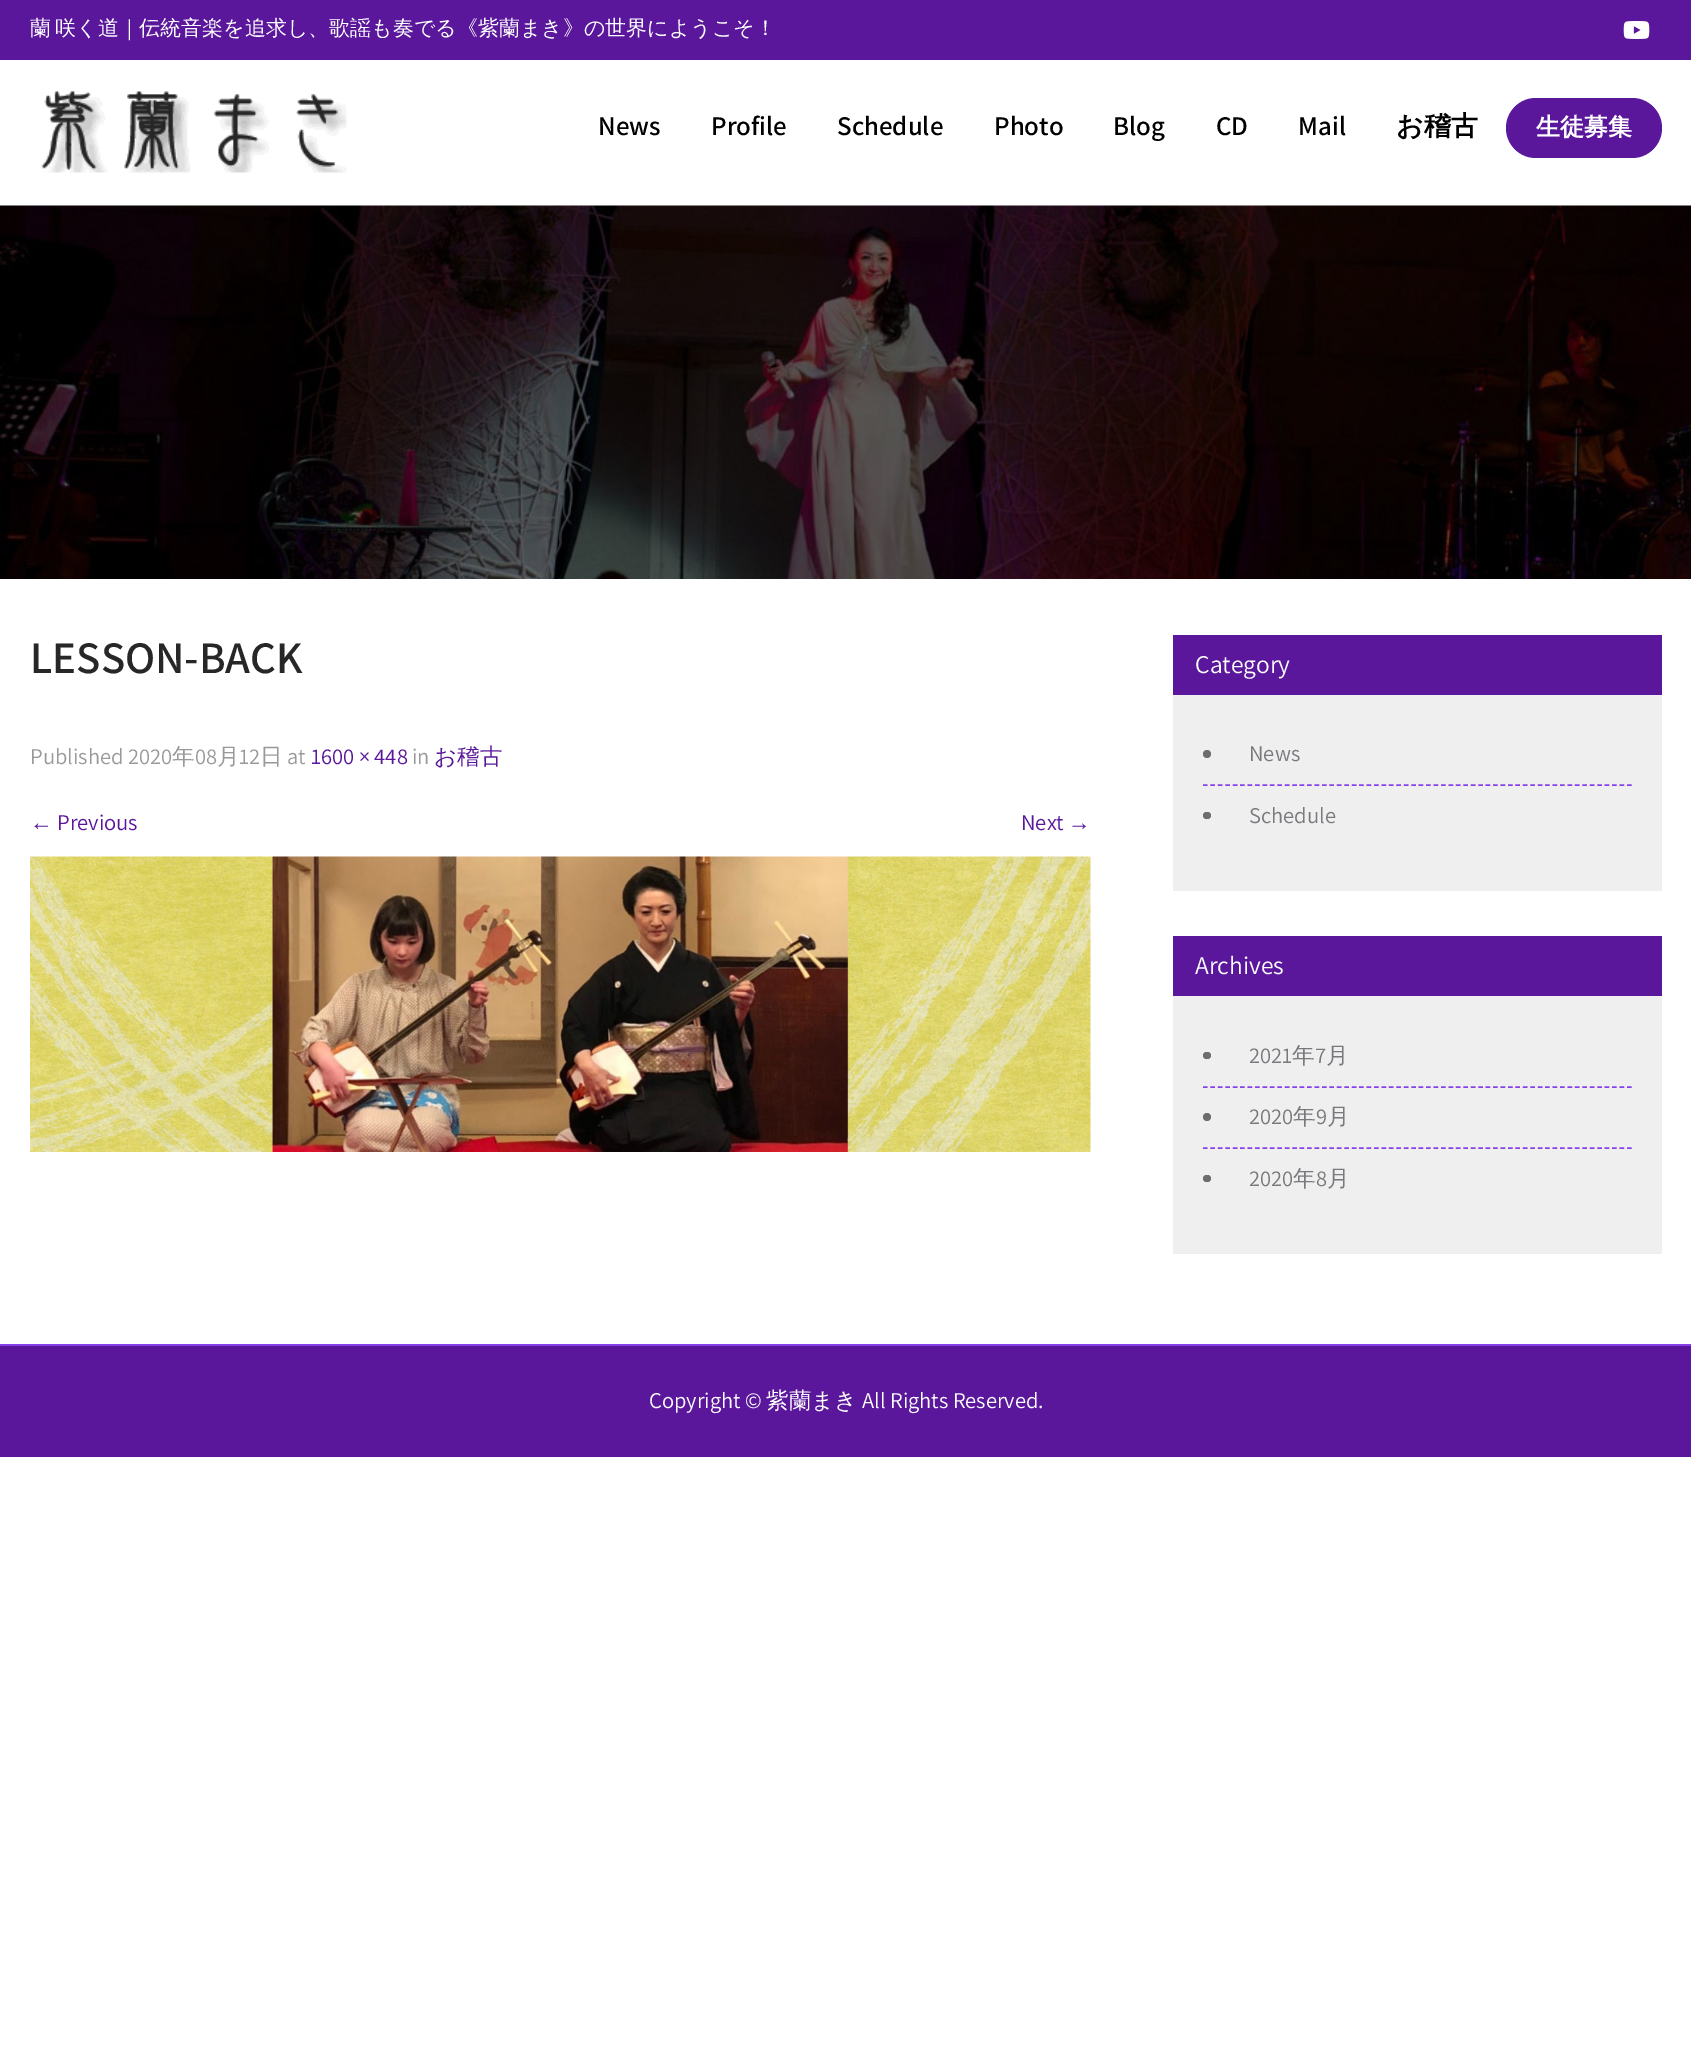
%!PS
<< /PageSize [1691 2045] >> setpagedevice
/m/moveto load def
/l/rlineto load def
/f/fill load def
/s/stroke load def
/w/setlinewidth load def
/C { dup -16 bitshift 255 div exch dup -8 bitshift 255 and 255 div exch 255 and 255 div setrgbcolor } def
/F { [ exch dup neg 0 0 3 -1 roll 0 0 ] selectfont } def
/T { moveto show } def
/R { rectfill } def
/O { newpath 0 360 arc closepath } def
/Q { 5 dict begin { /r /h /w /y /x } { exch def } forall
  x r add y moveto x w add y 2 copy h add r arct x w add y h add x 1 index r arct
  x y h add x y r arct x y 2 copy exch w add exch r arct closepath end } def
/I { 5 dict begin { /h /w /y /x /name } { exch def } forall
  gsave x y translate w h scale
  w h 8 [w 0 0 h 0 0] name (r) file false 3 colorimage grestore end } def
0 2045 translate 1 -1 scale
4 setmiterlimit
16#FFFFFF C
0 0 1691 2045 R
16#5B179B C
0 0 1691 60 R
/WenQuanYiZenHei-Medium 21 F
16#FFFFFF C
30 35 m -2 0 32 (蘭 咲く道｜伝統音楽を追求し、歌謡も奏でる) widthshow
(《紫蘭まき》の世界にようこそ！) 457 35 T
(1.rgb) 1623 21 27 18 I
(2.rgb) 41 91 306 82 I
/Assistant-SemiBold 27 F
16#000000 C
(News) 598 135 T
(Profile) 711 135 T
(Schedule) 837 135 T
(Photo) 994 135 T
(Blog) 1113 135 T
(CD) 1216 135 T
(Mail) 1298 135 T
/WenQuanYiZenHei-Bold 27 F
(お稽古) 1396 135 T
16#5B179B C
1506 98 156 60 30 Q f
/WenQuanYiZenHei-Bold 24 F
16#FFFFFF C
(生徒募集) 1536 135 T
(3.rgb) 0 205 1691 374 I
/Assistant-SemiBold 45 F
16#272727 C
(LESSON-BACK) 30 673 T
/Assistant-Regular 22.5 F
16#999999 C
(Published 2020) 30 764 T
/WenQuanYiZenHei-Medium 22.5 F
(年) 172 764 T
/Assistant-Regular 22.5 F
(08) 195 764 T
/WenQuanYiZenHei-Medium 22.5 F
(月) 217 764 T
/Assistant-Regular 22.5 F
(12) 239 764 T
/WenQuanYiZenHei-Medium 22.5 F
(日) 260 764 T
/Assistant-Regular 22.5 F
(at) 287 764 T
16#5B179B C
(1600 × 448) 311 764 T
16#999999 C
(in) 412 764 T
/WenQuanYiZenHei-Medium 22.5 F
16#5B179B C
(お稽古) 434 764 T
/LiberationSerif-Regular 22.5 F
(←) 30 830 T
/Assistant-Regular 22.5 F
(Previous) 57 830 T
(Next) 1021 830 T
/LiberationSerif-Regular 22.5 F
(→) 1068 830 T
(4.rgb) 30 856 1061 296 I
1173 635 489 60 R
/Assistant-Regular 25.5 F
16#FFFFFF C
(Category) 1195 673 T
16#F0EFEF C
1173 695 489 196 R
16#8640E8 C
1.5 w
[4.5 2.94] 0 setdash
1203 785 m 429 0 l s
16#6E6D6D C
1207 754 4 O f
/Assistant-Regular 22.5 F
16#78797C C
(News) 1249 761 T
16#6E6D6D C
1203 812 8 7 3.5 Q f
16#78797C C
(Schedule) 1249 823 T
16#5B179B C
1173 936 489 60 R
/Assistant-Regular 25.5 F
16#FFFFFF C
(Archives) 1195 974 T
16#F0EFEF C
1173 996 489 258 R
16#8640E8 C
1203 1087 m 429 0 l s
16#6E6D6D C
1203 1052 8 7 3.5 Q f
/Assistant-Regular 22.5 F
16#78797C C
(2021) 1249 1063 T
/WenQuanYiZenHei-Medium 22.5 F
(年) 1292 1063 T
/Assistant-Regular 22.5 F
(7) 1315 1063 T
/WenQuanYiZenHei-Medium 22.5 F
(月) 1326 1063 T
16#8640E8 C
1203 1148 m 429 0 l s
16#6E6D6D C
1207 1117 4 O f
/Assistant-Regular 22.5 F
16#78797C C
(2020) 1249 1124 T
/WenQuanYiZenHei-Medium 22.5 F
(年) 1293 1124 T
/Assistant-Regular 22.5 F
(9) 1316 1124 T
/WenQuanYiZenHei-Medium 22.5 F
(月) 1327 1124 T
16#6E6D6D C
1203 1175 8 7 3.5 Q f
/Assistant-Regular 22.5 F
16#78797C C
(2020) 1249 1186 T
/WenQuanYiZenHei-Medium 22.5 F
(年) 1293 1186 T
/Assistant-Regular 22.5 F
(8) 1316 1186 T
/WenQuanYiZenHei-Medium 22.5 F
(月) 1327 1186 T
16#5B179B C
0 1346 1691 111 R
16#8640E8 C
0 1344 1691 2 R
/Assistant-Regular 22.5 F
16#FFFFFF C
(Copyright ©) 649 1408 T
/WenQuanYiZenHei-Medium 22.5 F
(紫蘭まき) 766 1408 T
/Assistant-Regular 22.5 F
(All Rights Reserved.) 862 1408 T
showpage
